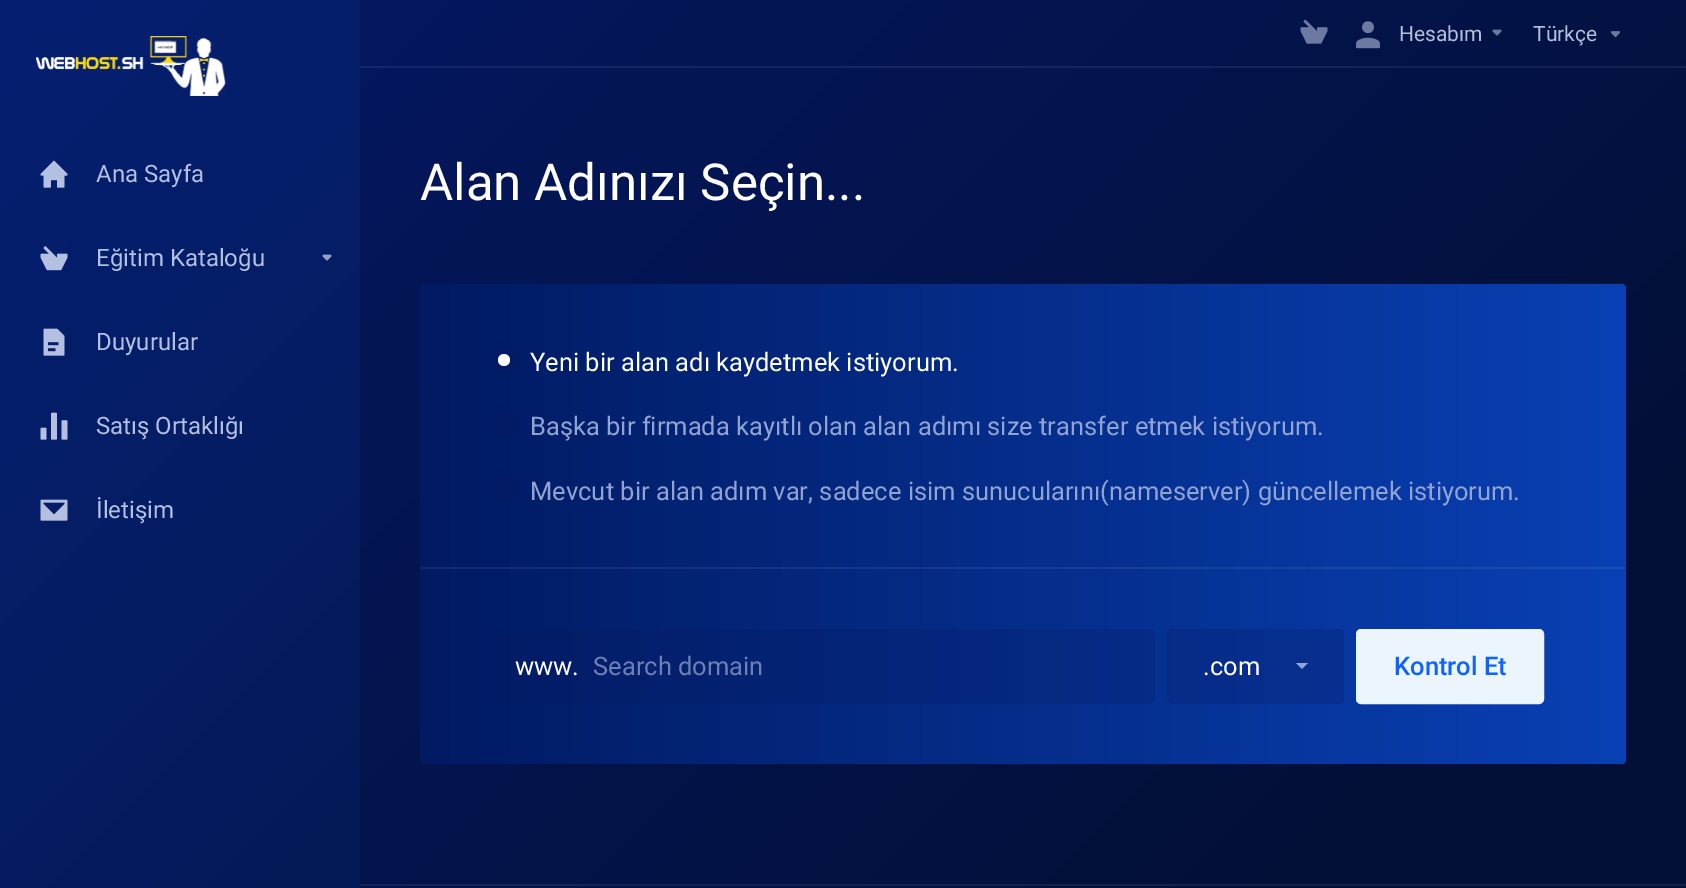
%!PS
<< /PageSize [1686 888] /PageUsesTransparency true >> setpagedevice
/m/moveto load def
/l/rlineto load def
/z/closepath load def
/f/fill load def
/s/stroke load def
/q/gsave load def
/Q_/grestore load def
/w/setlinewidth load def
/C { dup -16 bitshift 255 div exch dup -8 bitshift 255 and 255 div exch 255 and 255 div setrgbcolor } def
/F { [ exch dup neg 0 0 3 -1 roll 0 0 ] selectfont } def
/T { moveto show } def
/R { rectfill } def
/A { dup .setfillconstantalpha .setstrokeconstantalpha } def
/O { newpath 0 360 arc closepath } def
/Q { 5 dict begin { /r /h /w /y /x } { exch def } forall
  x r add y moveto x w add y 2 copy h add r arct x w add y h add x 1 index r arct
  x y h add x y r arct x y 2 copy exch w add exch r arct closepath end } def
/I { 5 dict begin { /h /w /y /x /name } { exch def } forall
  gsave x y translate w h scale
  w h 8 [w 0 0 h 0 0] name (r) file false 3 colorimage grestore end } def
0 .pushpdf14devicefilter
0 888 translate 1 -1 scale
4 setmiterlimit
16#FFFFFF C
0 0 1686 888 R
q 360 0 m 1326 0 l 0 888 l -1326 0 l z clip newpath
<< /ShadingType 2 /ColorSpace /DeviceRGB /Coords [171 -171 1515 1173] /Extend [true true] /Function << /FunctionType 3 /Domain [0 1] /Functions [<< /FunctionType 2 /Domain [0 1] /C0 [.02 .094 .4] /C1 [.008 .063 .22] /N 1 >> << /FunctionType 2 /Domain [0 1] /C0 [.008 .063 .22] /C1 [.008 .063 .22] /N 1 >>] /Bounds [.8] /Encode [0 1 0 1] >> >> shfill Q_
q 0 0 m 360 0 l 0 888 l -360 0 l z clip newpath
<< /ShadingType 2 /ColorSpace /DeviceRGB /Coords [171 -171 1515 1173] /Extend [true true] /Function << /FunctionType 3 /Domain [0 1] /Functions [<< /FunctionType 2 /Domain [0 1] /C0 [.02 .122 .443] /C1 [.008 .09 .275] /N 1 >> << /FunctionType 2 /Domain [0 1] /C0 [.008 .09 .275] /C1 [.008 .09 .275] /N 1 >>] /Bounds [.8] /Encode [0 1 0 1] >> >> shfill Q_
q 360 884 m 1326 0 l 0 2 l -1326 0 l z clip newpath
<< /ShadingType 2 /ColorSpace /DeviceRGB /Coords [171 -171 1515 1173] /Extend [true true] /Function << /FunctionType 3 /Domain [0 1] /Functions [<< /FunctionType 2 /Domain [0 1] /C0 [.09 .161 .447] /C1 [.078 .129 .282] /N 1 >> << /FunctionType 2 /Domain [0 1] /C0 [.078 .129 .282] /C1 [.078 .129 .282] /N 1 >>] /Bounds [.8] /Encode [0 1 0 1] >> >> shfill Q_
q 360 66 m 1326 0 l 0 2 l -1326 0 l z clip newpath
<< /ShadingType 2 /ColorSpace /DeviceRGB /Coords [171 -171 1515 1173] /Extend [true true] /Function << /FunctionType 3 /Domain [0 1] /Functions [<< /FunctionType 2 /Domain [0 1] /C0 [.09 .161 .447] /C1 [.078 .129 .282] /N 1 >> << /FunctionType 2 /Domain [0 1] /C0 [.078 .129 .282] /C1 [.078 .129 .282] /N 1 >>] /Bounds [.8] /Encode [0 1 0 1] >> >> shfill Q_
(1.rgb) 36 36 190 60 I
(2.rgb) 40 160 28 28 I
/Roboto-Regular 24 F
16#B4C0E1 C
(Ana Sayfa) 96 182 T
(3.rgb) 40 246 28 25 I
(Eğitim Kataloğu) 96 266 T
(4.rgb) 322 254 10 7 I
(5.rgb) 43 328 22 28 I
(Duyurular) 96 350 T
(6.rgb) 40 412 28 28 I
(Satış Ortaklığı) 96 434 T
(7.rgb) 40 499 28 22 I
(İletişim) 96 518 T
(8.rgb) 1300 19 28 25 I
(9.rgb) 1356 21 24 28 I
/Roboto-Regular 21 F
16#B4BDDA C
(Hesabım) 1399 41 T
(10.rgb) 1492 29 10 7 I
(Türkçe) 1533 41 T
(11.rgb) 1611 31 9 7 I
/Roboto-Regular 51 F
16#FFFFFF C
(Alan Adınızı Seçin...) 420 200 T
q 420 284 1206 480 6 Q clip newpath
<< /ShadingType 2 /ColorSpace /DeviceRGB /Coords [420 524 1626 524] /Extend [true true] /Function << /FunctionType 2 /Domain [0 1] /C0 [.004 .102 .384] /C1 [.035 .251 .702] /N 1 >> >> shfill Q_
q 420 567 m 1206 0 l 0 2 l -1206 0 l z clip newpath
<< /ShadingType 2 /ColorSpace /DeviceRGB /Coords [420 524 1626 524] /Extend [true true] /Function << /FunctionType 2 /Domain [0 1] /C0 [.075 .165 .435] /C1 [.102 .302 .725] /N 1 >> >> shfill Q_
16#031B65 C
504.5 360.5 13.5 O f
16#FFFFFF C
504 360 6 O f
/Roboto-Regular 25.5 F
(Yeni bir alan adı kaydetmek istiyorum.) 530 371 T
16#031B65 C
504.5 424.5 13.5 O f
16#91A3D2 C
(Başka bir firmada kayıtlı olan alan adımı size transfer etmek istiyorum.) 530 435 T
16#031B65 C
504.5 489.5 13.5 O f
16#91A3D2 C
(Mevcut bir alan adım var, sadece isim sunucularını\(nameserver\) güncellemek istiyorum.) 530 500 T
0.24 A
16#05175F C
491 629 664 75 5 Q f
1 A
16#FFFFFF C
(www.) 515 675 T
16#6D80B4 C
(Search domain) 593 675 T
0.24 A
16#05175F C
1167 629 177 75 5 Q f
1 A
16#FFFFFF C
(.com) 1203 675 T
16#92A5D6 C
1296 663 m 12 0 l -6 6 l z f
16#ECF4FC C
1357 630 186 73 4 Q q f Q_
2 w
s
/Roboto-Medium 25.5 F
16#1062FE C
(Kontrol Et) 1394 675 T
.poppdf14devicefilter showpage
